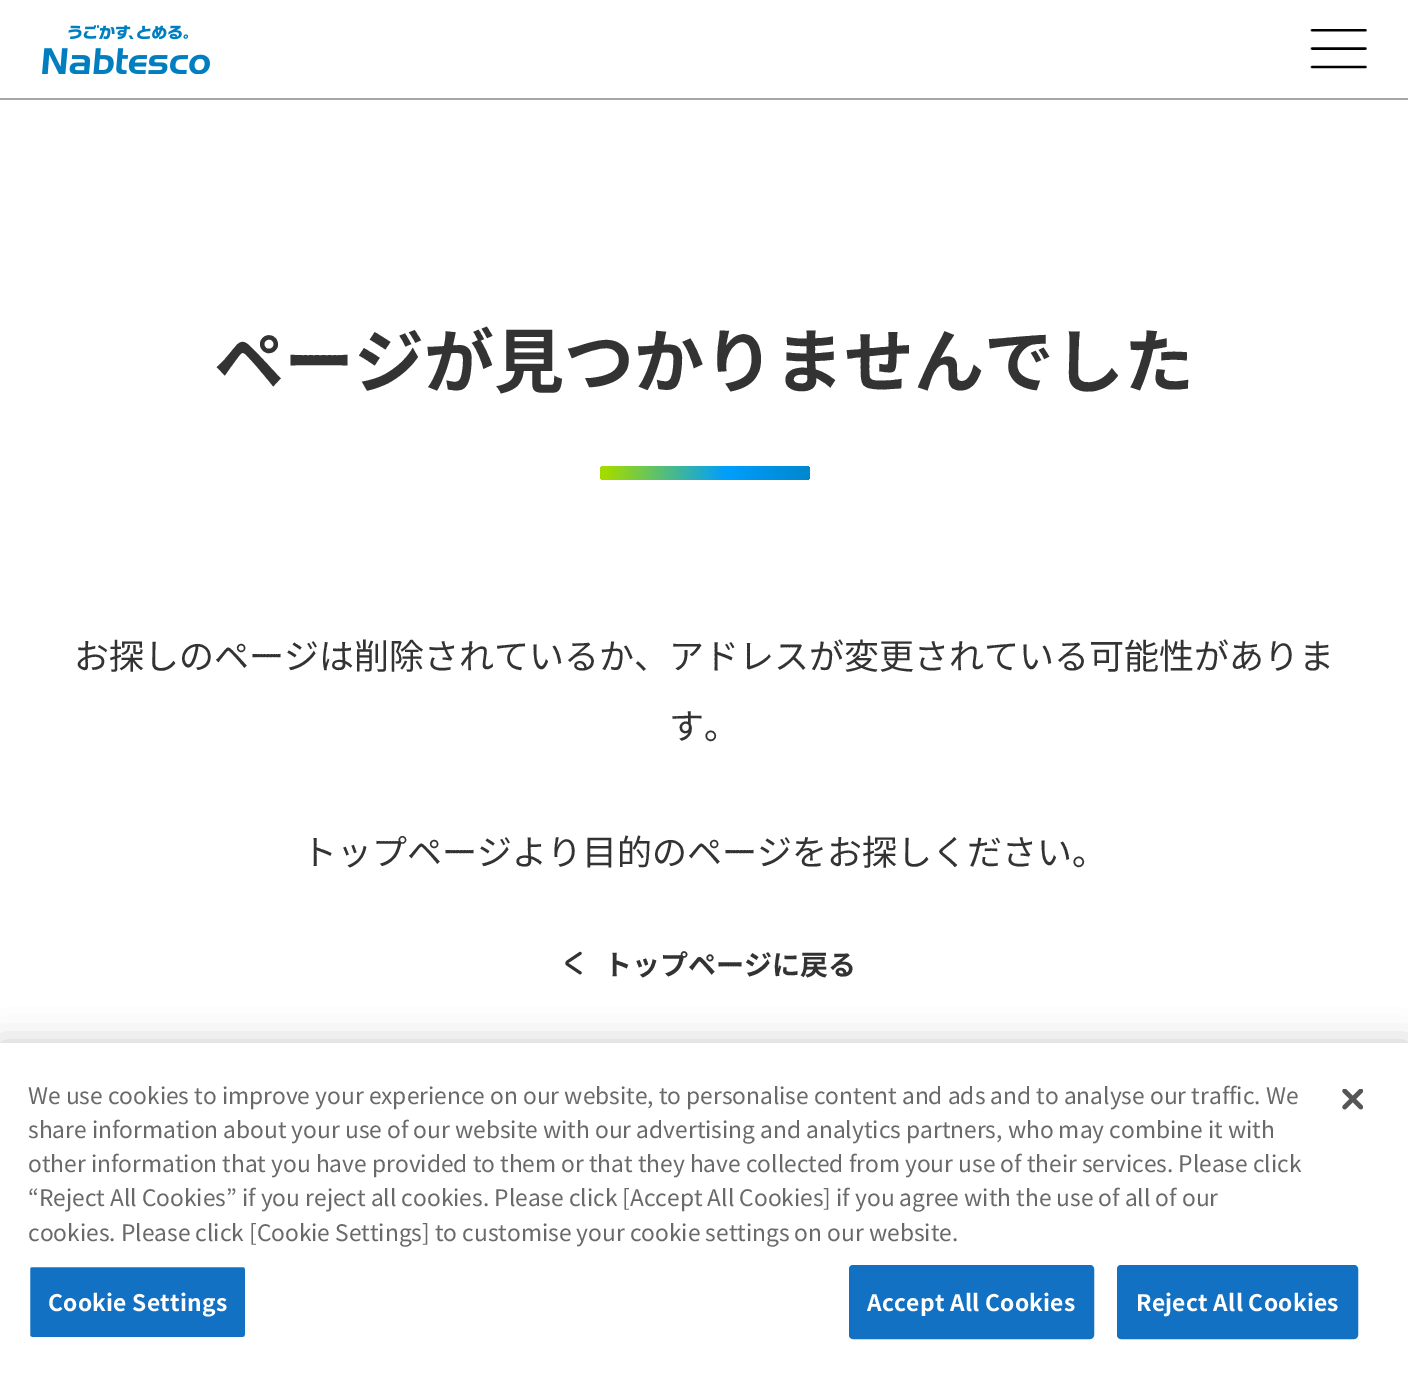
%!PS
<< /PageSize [1408 1375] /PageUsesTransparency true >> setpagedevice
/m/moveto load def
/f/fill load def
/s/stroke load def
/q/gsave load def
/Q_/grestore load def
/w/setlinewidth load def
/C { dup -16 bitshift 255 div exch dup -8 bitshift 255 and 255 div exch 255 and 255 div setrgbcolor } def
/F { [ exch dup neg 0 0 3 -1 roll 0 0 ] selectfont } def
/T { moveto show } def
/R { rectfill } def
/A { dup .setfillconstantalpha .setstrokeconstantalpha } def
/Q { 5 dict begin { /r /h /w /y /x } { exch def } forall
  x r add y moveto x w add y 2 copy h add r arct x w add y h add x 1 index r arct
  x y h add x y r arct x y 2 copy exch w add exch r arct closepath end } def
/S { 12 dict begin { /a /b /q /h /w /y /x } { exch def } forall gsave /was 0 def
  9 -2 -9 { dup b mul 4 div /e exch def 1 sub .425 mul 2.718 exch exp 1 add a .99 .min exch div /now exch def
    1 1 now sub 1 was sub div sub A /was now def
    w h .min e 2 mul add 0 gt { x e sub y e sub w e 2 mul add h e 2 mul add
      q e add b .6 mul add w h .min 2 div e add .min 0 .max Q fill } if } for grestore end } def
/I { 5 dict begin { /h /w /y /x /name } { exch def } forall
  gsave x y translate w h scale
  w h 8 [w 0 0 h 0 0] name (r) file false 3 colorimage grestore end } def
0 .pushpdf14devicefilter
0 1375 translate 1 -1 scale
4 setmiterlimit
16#FFFFFF C
0 0 1408 1375 R
16#A6A6A6 C
0 98 1408 2 R
(1.rgb) 42 25 168 49 I
(2.rgb) 1310 29 57 40 I
/NotoSansJP-Bold 70 F
16#333333 C
(ページが見つかりませんでした) 214 387 T
q 600 466 210 14 4 Q clip newpath
<< /ShadingType 2 /ColorSpace /DeviceRGB /Coords [600 473 810 473] /Extend [true true] /Function << /FunctionType 3 /Domain [0 1] /Functions [<< /FunctionType 2 /Domain [0 1] /C0 [.635 .859 0] /C1 [.635 .859 0] /N 1 >> << /FunctionType 2 /Domain [0 1] /C0 [.635 .859 0] /C1 [0 .62 .992] /N 1 >> << /FunctionType 2 /Domain [0 1] /C0 [0 .62 .992] /C1 [0 .529 .808] /N 1 >>] /Bounds [.03 .6] /Encode [0 1 0 1 0 1] >> >> shfill Q_
/NotoSansJP-Thin 35 F
(お探しのページは削除されているか、アドレスが変更されている可能性がありま) 74 669 T
(す。) 669 739 T
(トップページより目的のページをお探しください。) 302 865 T
(3.rgb) 565 951 17 24 I
/NotoSansJP-Bold 28 F
(トップページに戻る) 604 975 T
16#000000 C
0 1043 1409 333 0 16 .2 S
16#FFFFFF C
0 1043 1408 332 R
/NotoSansJP-Thin 22.75 F
16#696969 C
(We use cookies to improve your experience on our website, to personalise content and ads and to analyse our traffic. We) 28 1104 T
(share information about your use of our website with our advertising and analytics partners, who may combine it with) 28 1138 T
(other information that you have provided to them or that they have collected from your use of their services. Please click) 28 1172 T
(“Reject All Cookies” if you reject all cookies. Please click [Accept All Cookies] if you agree with the use of all of our) 28 1206 T
(cookies. Please click [Cookie Settings] to customise your cookie settings on our website.) 28 1241 T
16#1371C3 C
29 1266 217 72 3 Q q f Q_
16#FFFFFF C
2 w
s
/NotoSansJP-Bold 22.75 F
48 1311 m .25 0 (Cookie Settings) ashow
16#1371C3 C
850 1266 243 72 3 Q q f Q_
s
16#FFFFFF C
867 1311 m .25 0 (Accept All Cookies) ashow
16#1371C3 C
1118 1266 239 72 3 Q q f Q_
s
16#FFFFFF C
1136 1311 m .25 0 (Reject All Cookies) ashow
(4.rgb) 1342 1089 21 21 I
.poppdf14devicefilter showpage
